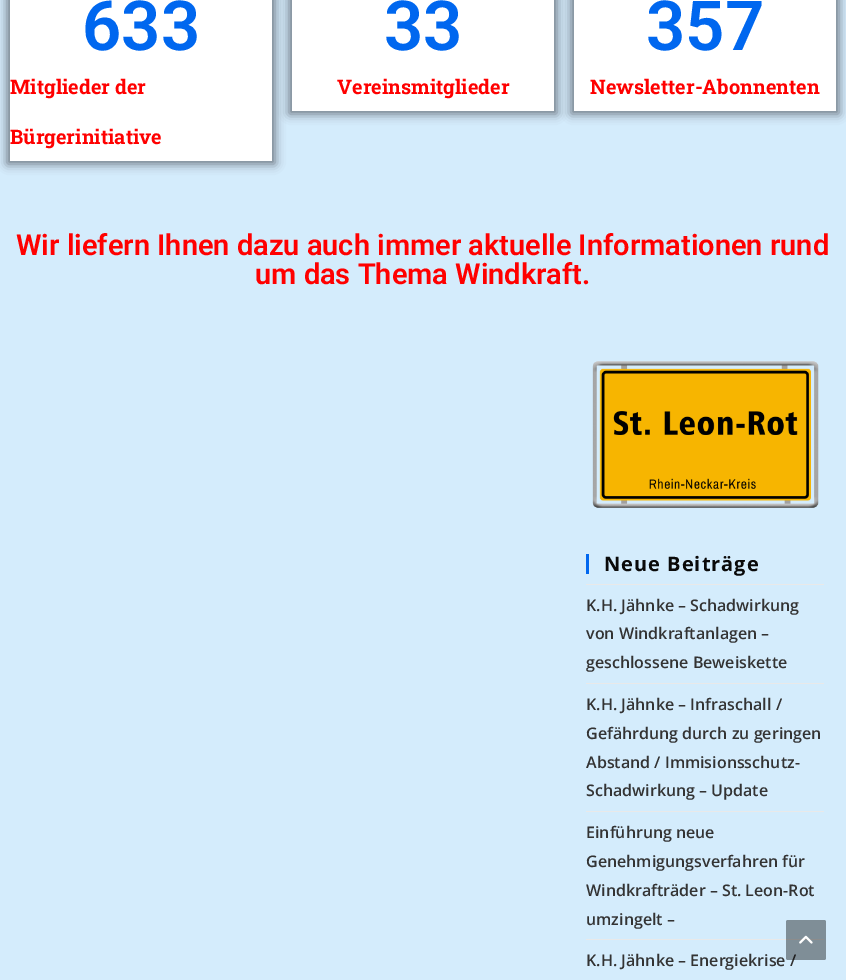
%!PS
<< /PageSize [846 980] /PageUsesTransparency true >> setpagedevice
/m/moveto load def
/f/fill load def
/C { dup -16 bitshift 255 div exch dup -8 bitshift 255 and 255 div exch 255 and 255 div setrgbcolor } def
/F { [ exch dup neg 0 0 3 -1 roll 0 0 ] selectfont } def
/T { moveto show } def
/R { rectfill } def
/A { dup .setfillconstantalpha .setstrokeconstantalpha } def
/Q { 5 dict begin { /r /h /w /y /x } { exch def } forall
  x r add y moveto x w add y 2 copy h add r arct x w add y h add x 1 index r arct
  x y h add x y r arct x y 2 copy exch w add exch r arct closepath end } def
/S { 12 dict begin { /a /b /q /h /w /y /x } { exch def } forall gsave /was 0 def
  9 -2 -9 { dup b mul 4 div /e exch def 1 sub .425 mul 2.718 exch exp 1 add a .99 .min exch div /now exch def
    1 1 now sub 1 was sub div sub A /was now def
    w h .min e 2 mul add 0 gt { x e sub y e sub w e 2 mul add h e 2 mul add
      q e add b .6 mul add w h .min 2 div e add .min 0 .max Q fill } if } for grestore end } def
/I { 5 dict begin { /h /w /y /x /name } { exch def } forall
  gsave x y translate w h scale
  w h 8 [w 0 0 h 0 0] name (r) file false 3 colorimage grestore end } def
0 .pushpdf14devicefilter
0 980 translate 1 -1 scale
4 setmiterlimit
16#D4ECFC C
0 0 846 980 R
16#000000 C
7 -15 268 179 0 5 .5 S
16#FFFFFF C
10 0 262 161 R
/Roboto-SemiBold 69 F
16#0067EF C
(633) 82 50 T
/RobotoSlab-Bold 20 F
16#FF0000 C
(Mitglieder der) 10 94 T
(Bürgerinitiative) 10 144 T
16#000000 C
289 -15 268 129 0 5 .5 S
16#FFFFFF C
292 0 262 111 R
/Roboto-SemiBold 69 F
16#0067EF C
(33) 384 50 T
/RobotoSlab-Bold 20 F
16#FF0000 C
(Vereinsmitglieder) 337 94 T
16#000000 C
571 -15 268 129 0 5 .5 S
16#FFFFFF C
574 0 262 111 R
/Roboto-SemiBold 69 F
16#0067EF C
(357) 646 50 T
/RobotoSlab-Bold 20 F
16#FF0000 C
(Newsletter-Abonnenten) 590 94 T
/Roboto-SemiBold 29 F
(Wir liefern Ihnen dazu auch immer aktuelle Informationen rund) 16 255 T
(um das Thema Windkraft.) 255 284 T
(1.rgb) 592 361 227 147 I
16#0067EF C
586 554 3 20 R
/OpenSans-Bold 20 F
16#0A0A0A C
604 571 m 1 0 (Neue Beiträge) ashow
16#E9E9E9 C
586 584 238 1 R
586 683 238 1 R
/OpenSans-SemiBold 16 F
16#333333 C
(K.H. Jähnke – Schadwirkung) 586 611 T
(von Windkraftanlagen –) 586 639 T
(geschlossene Beweiskette) 586 668 T
16#E9E9E9 C
586 811 238 1 R
16#333333 C
(K.H. Jähnke – Infraschall /) 586 710 T
(Gefährdung durch zu geringen) 586 739 T
(Abstand / Immisionsschutz-) 586 768 T
(Schadwirkung – Update) 586 796 T
16#E9E9E9 C
586 939 238 1 R
16#333333 C
(Einführung neue) 586 838 T
(Genehmigungsverfahren für) 586 867 T
(Windkrafträder – St. Leon-Rot) 586 896 T
(umzingelt –) 586 925 T
(K.H. Jähnke – Energiekrise /) 586 966 T
0.4 A
16#000000 C
786 920 40 40 2 Q f
1 A
(2.rgb) 799 935 14 9 I
.poppdf14devicefilter showpage
